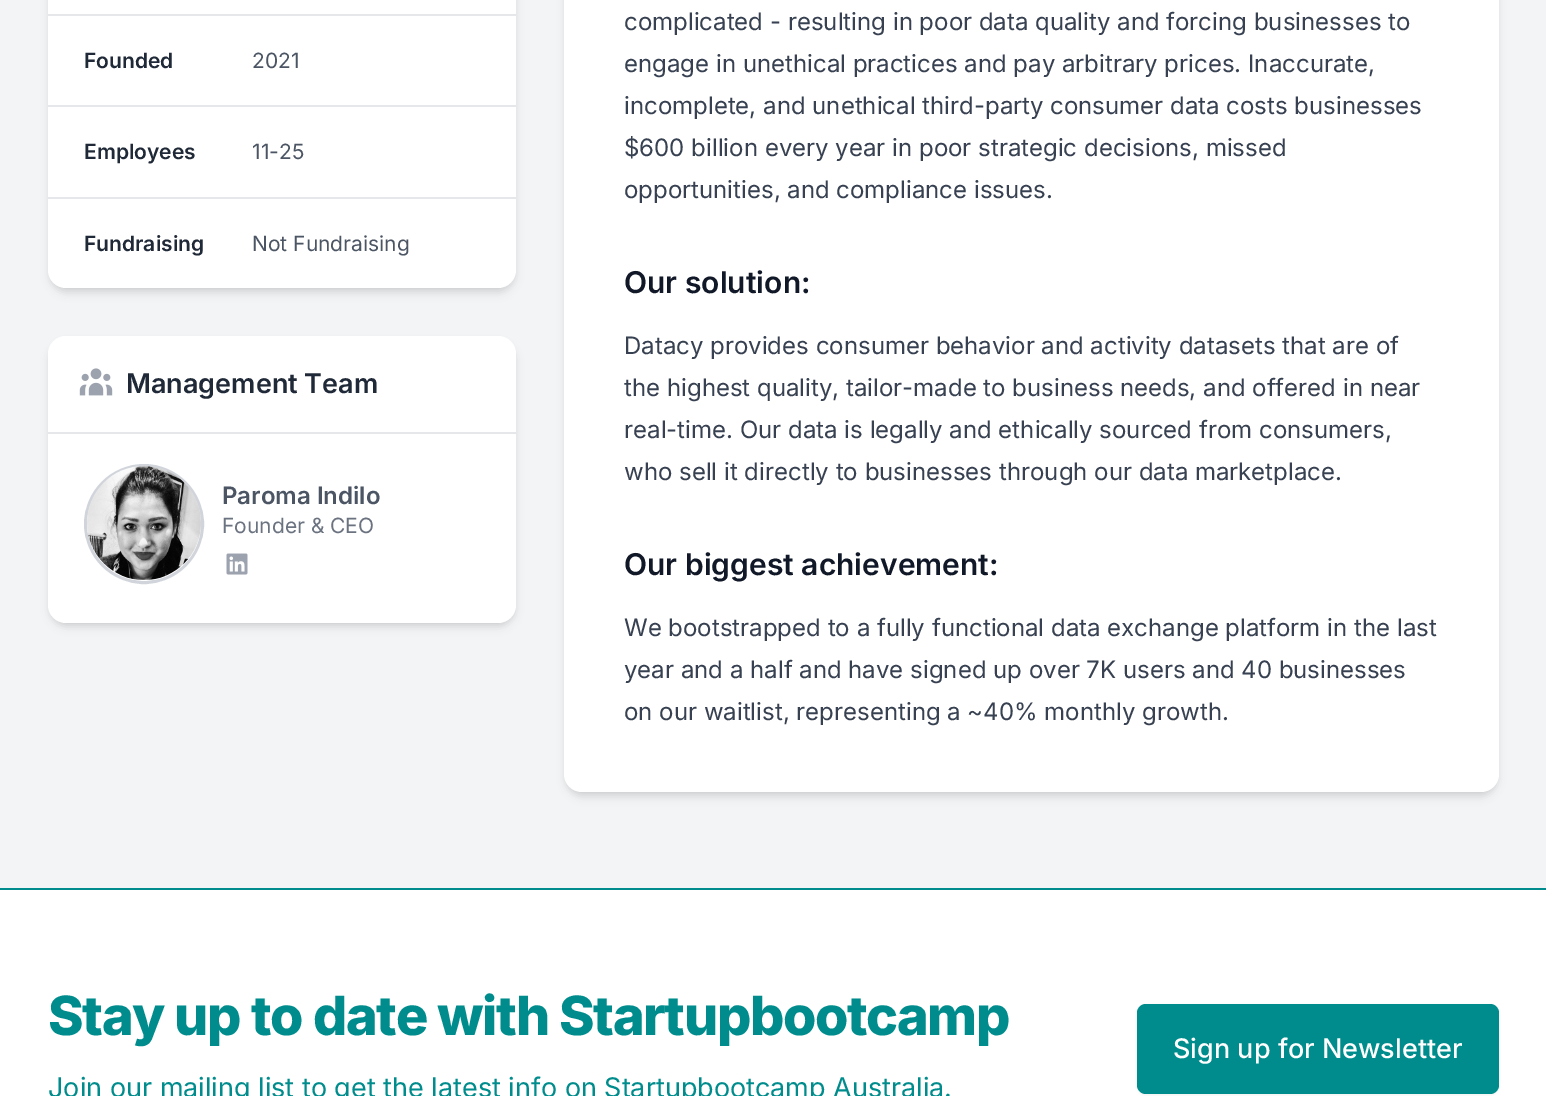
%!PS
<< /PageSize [1546 1096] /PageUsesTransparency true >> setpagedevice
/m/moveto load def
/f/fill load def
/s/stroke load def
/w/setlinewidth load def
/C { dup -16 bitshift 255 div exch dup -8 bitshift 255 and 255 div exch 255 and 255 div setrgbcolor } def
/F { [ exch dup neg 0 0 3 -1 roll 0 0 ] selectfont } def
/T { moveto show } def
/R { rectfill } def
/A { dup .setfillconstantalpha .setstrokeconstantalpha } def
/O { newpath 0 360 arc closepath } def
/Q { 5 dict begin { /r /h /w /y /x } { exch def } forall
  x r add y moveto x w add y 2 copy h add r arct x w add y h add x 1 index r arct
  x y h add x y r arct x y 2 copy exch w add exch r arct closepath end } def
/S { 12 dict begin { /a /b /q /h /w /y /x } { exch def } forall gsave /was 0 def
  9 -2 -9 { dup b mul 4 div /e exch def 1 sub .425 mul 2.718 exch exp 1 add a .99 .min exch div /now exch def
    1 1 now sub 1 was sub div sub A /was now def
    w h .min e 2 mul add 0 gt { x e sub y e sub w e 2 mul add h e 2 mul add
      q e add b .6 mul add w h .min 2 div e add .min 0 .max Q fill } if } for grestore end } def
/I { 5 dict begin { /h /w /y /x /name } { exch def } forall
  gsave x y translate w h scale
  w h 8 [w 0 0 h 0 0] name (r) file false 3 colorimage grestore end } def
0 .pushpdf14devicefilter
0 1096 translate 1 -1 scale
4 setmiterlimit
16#FFFFFF C
0 0 1546 1096 R
16#F3F4F6 C
0 0 1546 888 R
16#000000 C
51 -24 462 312 15 3 .1 S
50 -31 465 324 17 4.5 .1 S
16#FFFFFF C
48 -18 468 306 18 Q f
16#E5E7EB C
48 14 468 2 R
/Inter-SemiBold 21 F
16#1F2937 C
(Founded) 84 68 T
/Inter-Regular 21 F
16#4B5563 C
(2021) 252 68 T
16#E5E7EB C
48 105 468 2 R
/Inter-SemiBold 21 F
16#1F2937 C
(Employees) 84 159 T
/Inter-Regular 21 F
16#4B5563 C
(11-25) 252 159 T
16#E5E7EB C
48 197 468 2 R
/Inter-SemiBold 21 F
16#1F2937 C
(Fundraising) 84 251 T
/Inter-Regular 21 F
16#4B5563 C
(Not Fundraising) 252 251 T
16#000000 C
51 342 462 281 15 3 .1 S
50 344 465 283 17 4.5 .1 S
16#FFFFFF C
48 336 468 287 18 Q f
(1.rgb) 79 368 34 28 I
/Inter-SemiBold 27 F
16#1F2937 C
(Management Team) 126 393 T
16#E5E7EB C
48 432 468 2 R
16#D1D5DB C
3 w
144 524 58.5 O s
(2.rgb) 87 466 114 114 I
/Inter-SemiBold 24 F
16#4B5563 C
(Paroma Indilo) 222 504 T
/Inter-Regular 21 F
16#6B7280 C
(Founder & CEO) 222 533 T
(3.rgb) 226 553 22 22 I
16#000000 C
567 -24 929 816 15 3 .1 S
566 -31 931 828 17 4.5 .1 S
16#FFFFFF C
564 -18 935 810 18 Q f
/Inter-Regular 24 F
16#374151 C
(complicated - resulting in poor data quality and forcing businesses to) 624 30 T
(engage in unethical practices and pay arbitrary prices. Inaccurate,) 624 72 T
(incomplete, and unethical third-party consumer data costs businesses) 624 114 T
($600 billion every year in poor strategic decisions, missed) 624 156 T
(opportunities, and compliance issues.) 624 198 T
/Inter-SemiBold 30 F
16#111827 C
(Our solution:) 624 293 T
/Inter-Regular 24 F
16#374151 C
(Datacy provides consumer behavior and activity datasets that are of) 624 354 T
(the highest quality, tailor-made to business needs, and offered in near) 624 396 T
(real-time. Our data is legally and ethically sourced from consumers,) 624 438 T
(who sell it directly to businesses through our data marketplace.) 624 480 T
/Inter-SemiBold 30 F
16#111827 C
(Our biggest achievement:) 624 575 T
/Inter-Regular 24 F
16#374151 C
(We bootstrapped to a fully functional data exchange platform in the last) 624 636 T
(year and a half and have signed up over 7K users and 40 businesses) 624 678 T
(on our waitlist, representing a ~40% monthly growth.) 624 720 T
16#008C8C C
0 888 1546 2 R
/Inter-ExtraBold 54 F
48 1035 m -1.35 0 (Stay up to date with Startupbootcamp) ashow
/Inter-Regular 27 F
(Join our mailing list to get the latest info on Startupbootcamp Australia.) 48 1097 T
16#000000 C
1137 1005 362 90 9 1.5 .05 S
16#008C8C C
1137 1004 362 90 9 Q f
/Inter-Medium 27 F
16#FFFFFF C
(Sign up for Newsletter) 1173 1058 T
.poppdf14devicefilter showpage
